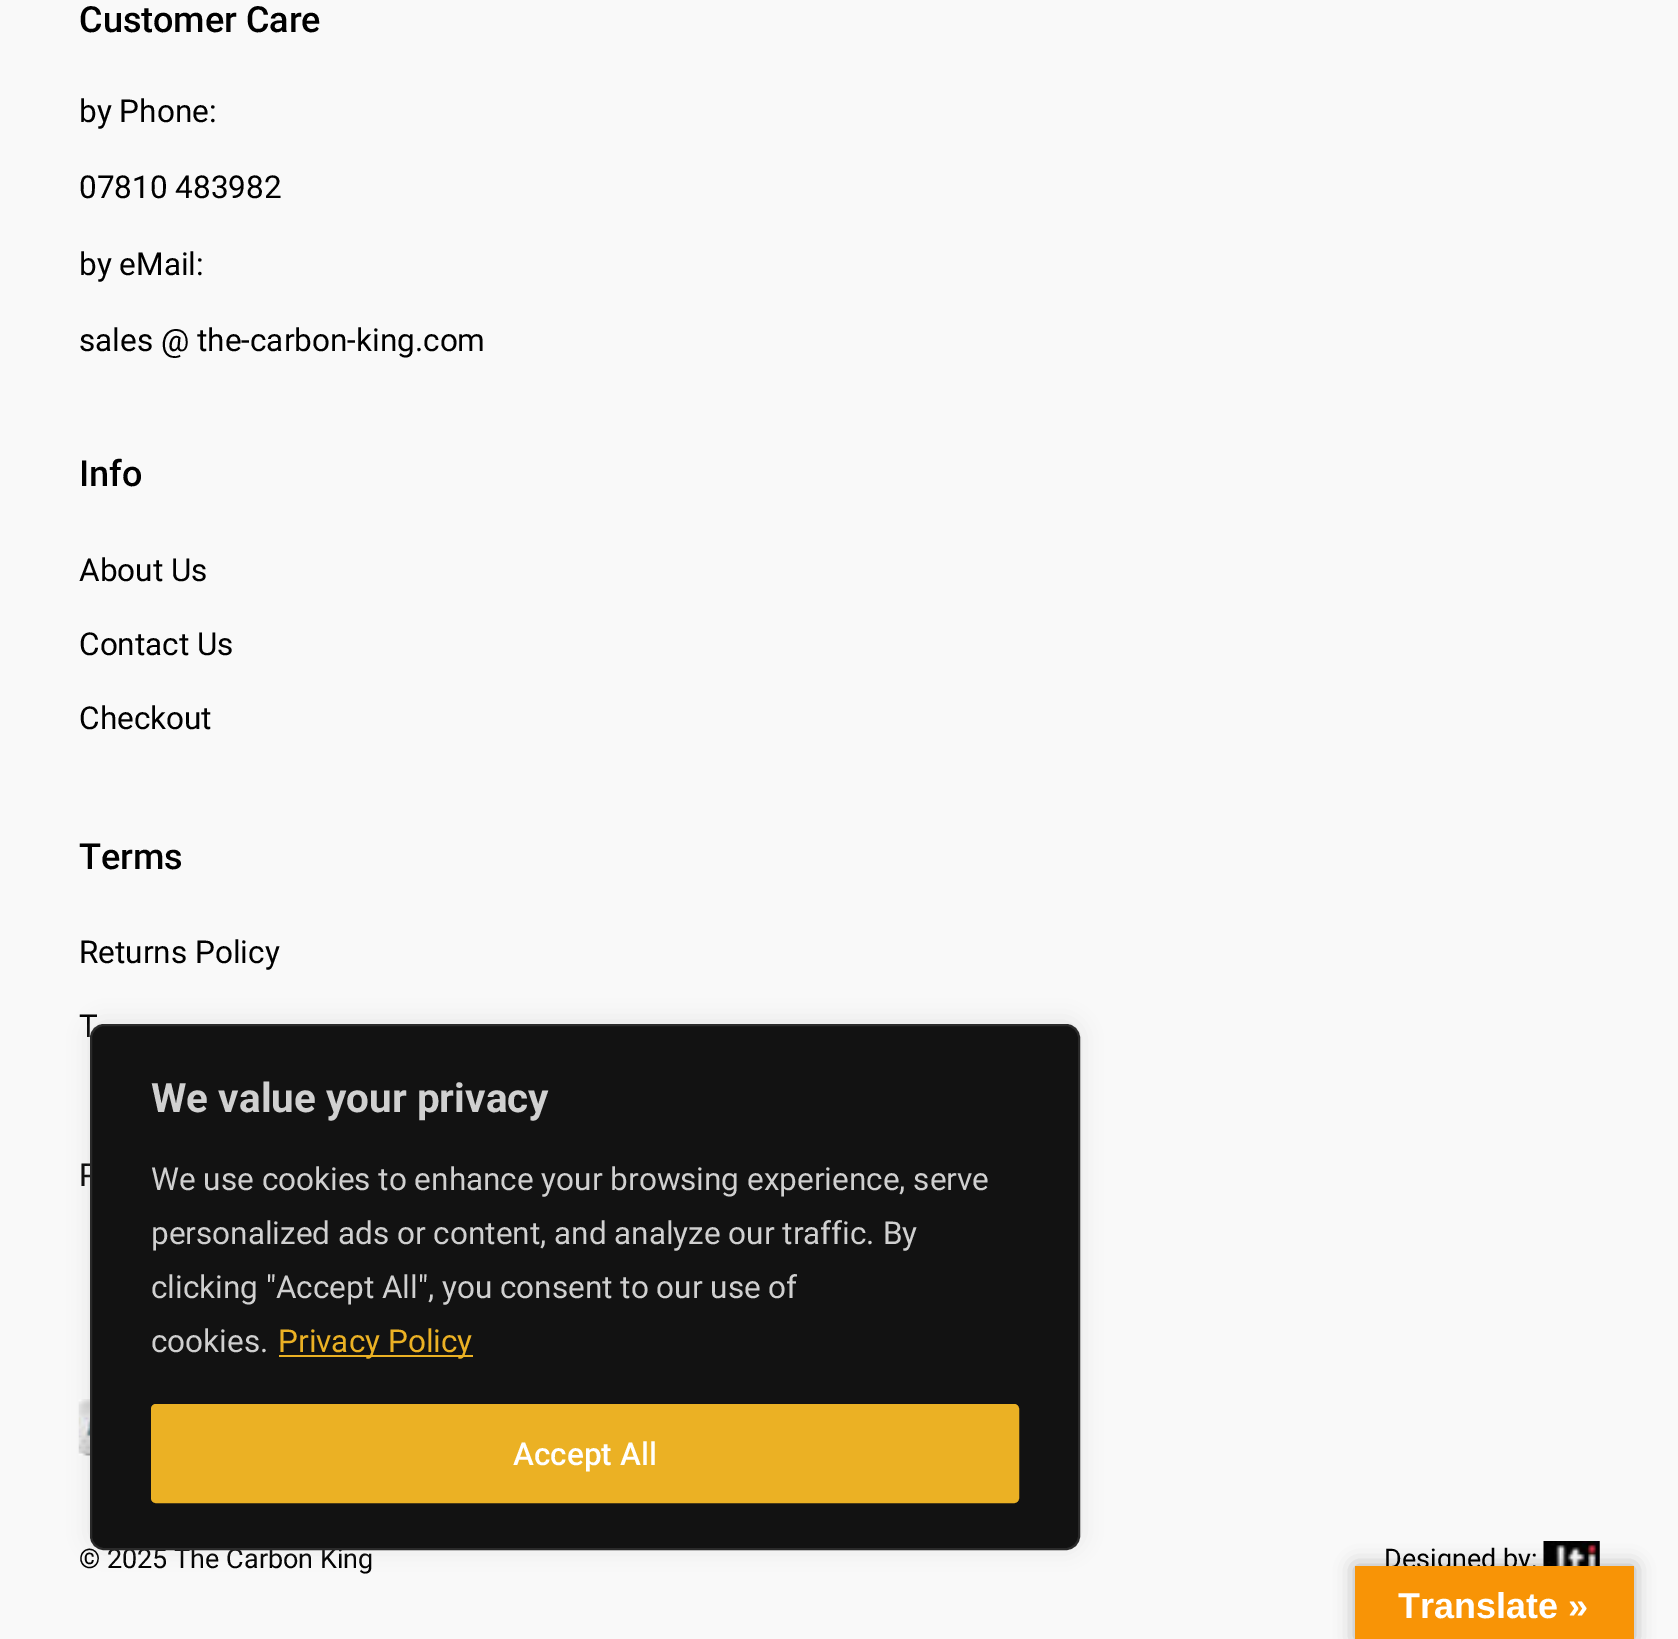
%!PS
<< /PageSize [1678 1639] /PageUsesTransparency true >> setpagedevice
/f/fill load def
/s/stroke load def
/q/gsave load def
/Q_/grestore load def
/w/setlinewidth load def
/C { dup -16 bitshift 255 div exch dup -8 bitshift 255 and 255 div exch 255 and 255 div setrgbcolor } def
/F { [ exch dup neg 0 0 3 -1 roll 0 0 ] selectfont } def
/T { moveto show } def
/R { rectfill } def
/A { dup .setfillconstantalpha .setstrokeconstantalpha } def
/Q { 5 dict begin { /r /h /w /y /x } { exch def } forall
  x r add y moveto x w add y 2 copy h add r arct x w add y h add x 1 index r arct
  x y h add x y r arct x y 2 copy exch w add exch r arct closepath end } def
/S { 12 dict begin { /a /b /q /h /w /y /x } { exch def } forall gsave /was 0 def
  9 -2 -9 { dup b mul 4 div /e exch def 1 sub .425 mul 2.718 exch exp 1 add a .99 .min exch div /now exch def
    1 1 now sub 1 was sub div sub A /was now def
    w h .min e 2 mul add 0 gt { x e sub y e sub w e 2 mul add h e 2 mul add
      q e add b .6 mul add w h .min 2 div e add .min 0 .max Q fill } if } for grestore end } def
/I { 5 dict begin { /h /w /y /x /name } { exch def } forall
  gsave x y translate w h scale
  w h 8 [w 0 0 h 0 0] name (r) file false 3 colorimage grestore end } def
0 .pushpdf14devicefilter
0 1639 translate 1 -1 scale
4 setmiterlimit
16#F9F9F9 C
0 0 1678 1639 R
/Roboto-Medium 36 F
16#000000 C
(Customer Care) 79 32 T
/Roboto-Regular 31.5 F
(by Phone:) 79 122 T
(07810 483982) 79 198 T
(by eMail:) 79 275 T
(sales @ the-carbon-king.com) 79 351 T
/Roboto-Medium 36 F
(Info) 79 486 T
/Roboto-Regular 31.5 F
(About Us) 79 581 T
(Contact Us) 79 655 T
(Checkout) 79 729 T
/Roboto-Medium 36 F
(Terms) 79 869 T
/Roboto-Regular 31.5 F
(Returns Policy) 79 963 T
(T) 79 1037 T
(P) 79 1186 T
(1.rgb) 78 1399 12 57 I
/Roboto-Regular 27 F
(© 2025 The Carbon King) 79 1568 T
(Designed by:) 1384 1568 T
(2.rgb) 1543 1541 57 25 I
16#ACABAB C
90 1022 990 526 14 11 .3 S
16#121212 C
91 1025 988 524 13 Q q f Q_
16#2A2A2A C
2 w
s
/Roboto-Bold 40.5 F
16#D0D0D0 C
(We value your privacy) 151 1112 T
/Roboto-Regular 31.5 F
(We use cookies to enhance your browsing experience, serve) 151 1190 T
(personalized ads or content, and analyze our traffic. By) 151 1244 T
(clicking "Accept All", you consent to our use of) 151 1298 T
(cookies.) 151 1352 T
16#EBB124 C
279 1355 194 2 R
(Privacy Policy) 278 1352 T
153.5 1406.5 863 94 2.5 Q q f Q_
5 w
s
/Roboto-Medium 31.5 F
16#FFFFFF C
(Accept All) 513 1465 T
16#000000 C
1355 1566 279 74 0 10 .3 S
16#F89406 C
1355 1566 279 73 R
/LiberationSans-Bold 36 F
16#FFFFFF C
(Translate ») 1398 1618 T
.poppdf14devicefilter showpage
